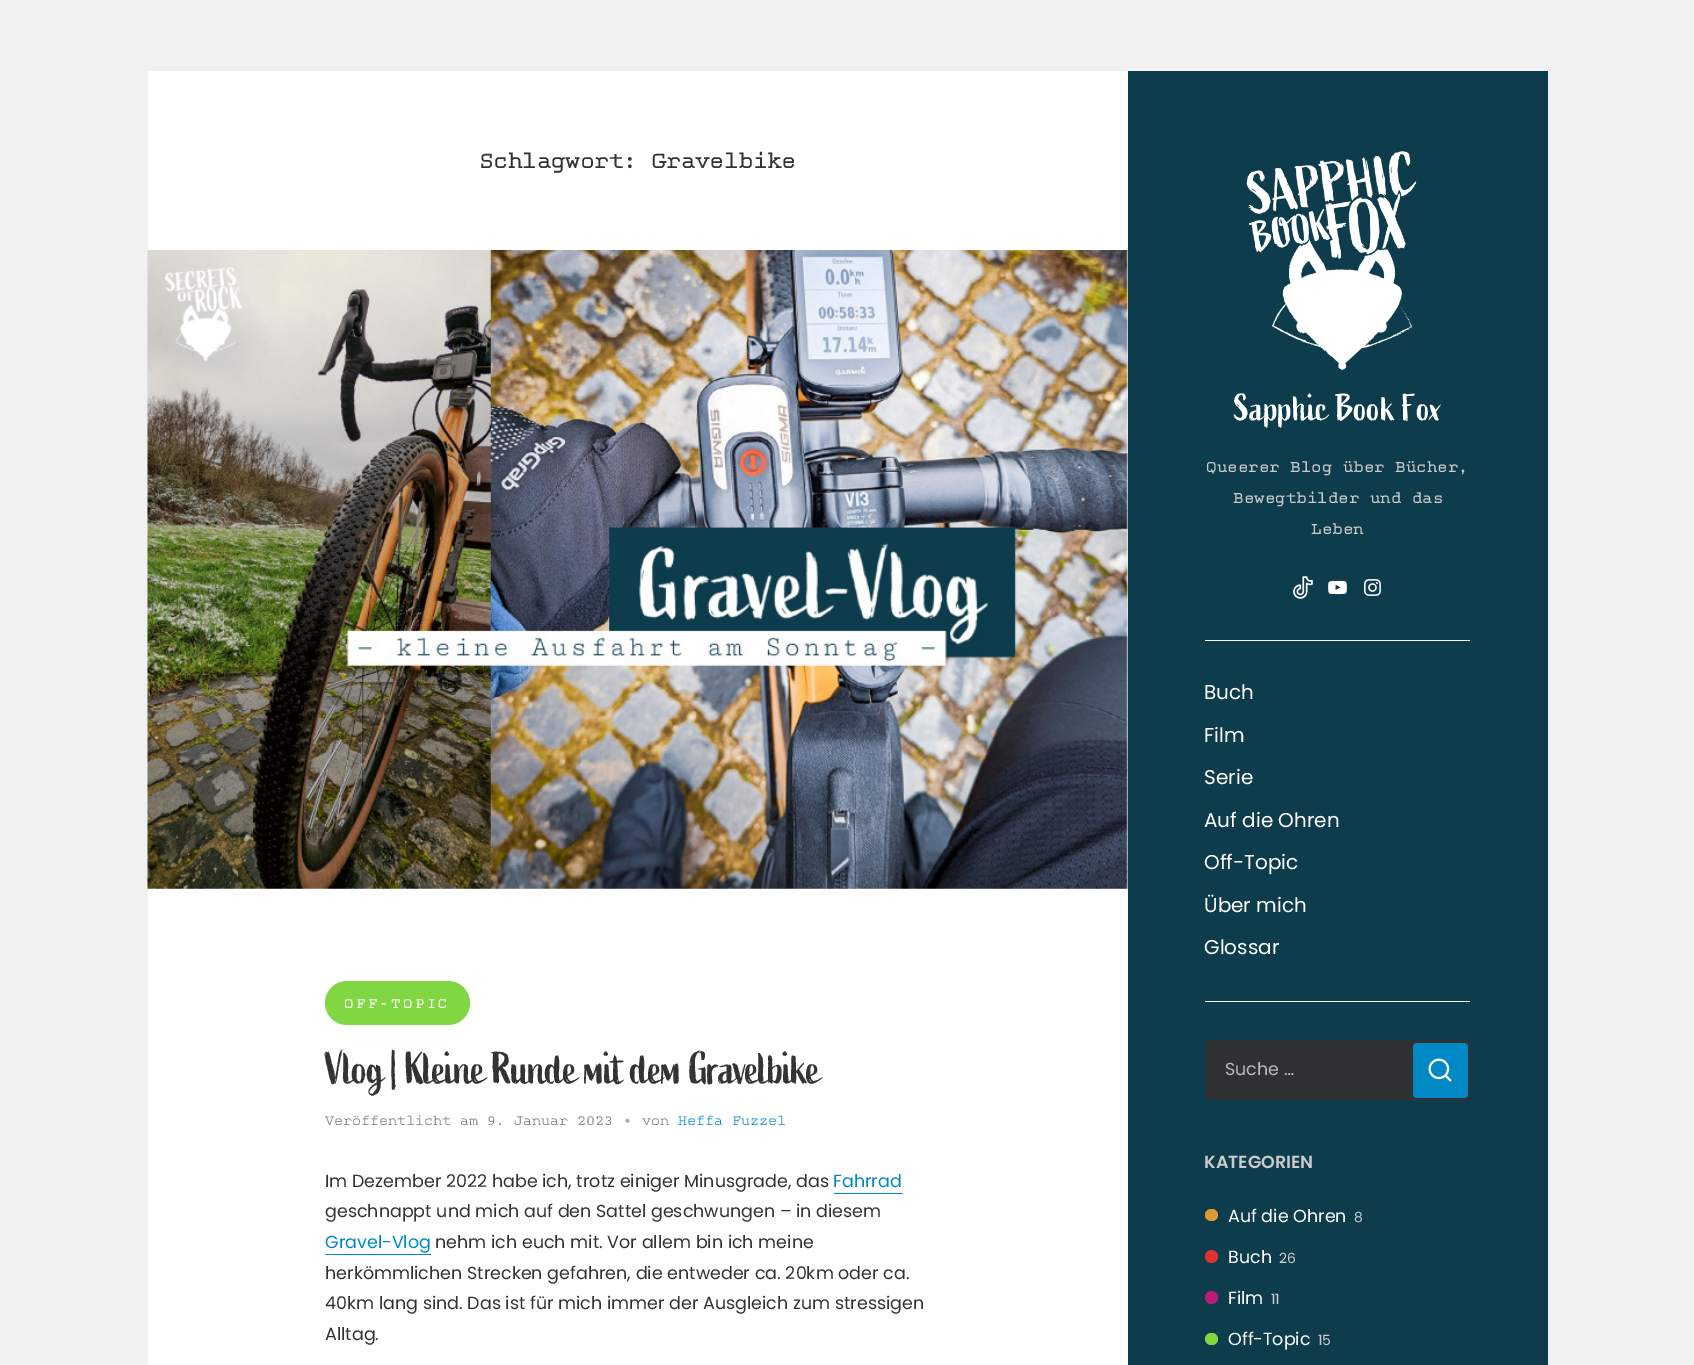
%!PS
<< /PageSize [1694 1365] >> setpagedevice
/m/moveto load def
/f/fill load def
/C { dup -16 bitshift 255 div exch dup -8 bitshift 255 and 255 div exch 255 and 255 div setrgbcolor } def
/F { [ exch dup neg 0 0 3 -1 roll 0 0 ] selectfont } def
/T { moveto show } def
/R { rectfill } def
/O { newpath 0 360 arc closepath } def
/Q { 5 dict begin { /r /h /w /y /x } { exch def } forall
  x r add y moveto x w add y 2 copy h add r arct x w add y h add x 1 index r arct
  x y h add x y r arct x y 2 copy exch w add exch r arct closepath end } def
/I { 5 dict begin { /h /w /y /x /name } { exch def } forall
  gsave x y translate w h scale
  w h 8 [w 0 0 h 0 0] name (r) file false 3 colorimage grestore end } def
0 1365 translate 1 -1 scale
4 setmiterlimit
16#F1F1F1 C
0 0 1694 1365 R
16#FFFFFF C
148 71 980 1294 R
/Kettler-Bold 25 F
16#333333 C
479 168 m -.6 0 (Schlagwort: Gravelbike) ashow
16#F8F8F8 C
148 250 980 639 R
(1.rgb) 147 250 981 639 I
16#81D742 C
325 981 145 44 22 Q f
/Kettler-Bold 15.5 F
16#FFFFFF C
344 1008 m 2.5 0 (OFF-TOPIC) ashow
/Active-Regular 45 F
16#333333 C
325 1083 m -1.55 0 (Vlog | Kleine Runde mit dem Gravelbike) ashow
/Kettler-Regular 15 F
16#767676 C
(Veröffentlicht am 9. Januar 2023) 325 1125 T
16#ADADAD C
(•) 623 1125 T
16#767676 C
(von) 642 1125 T
16#0089C5 C
(Heffa Fuzzel) 678 1125 T
/Poppins-Regular 17.5 F
16#333333 C
(Im Dezember 2022 habe ich, trotz einiger Minusgrade, das) 325 1187 T
16#0089C5 C
(Fahrrad) 833 1187 T
834 1193 69 1 R
16#333333 C
(geschnappt und mich auf den Sattel geschwungen – in diesem) 325 1217 T
16#0089C5 C
(Gravel-Vlog) 325 1248 T
325 1254 106 1 R
16#333333 C
(nehm ich euch mit. Vor allem bin ich meine) 435 1248 T
(herkömmlichen Strecken gefahren, die entweder ca. 20km oder ca.) 325 1279 T
(40km lang sind. Das ist für mich immer der Ausgleich zum stressigen) 325 1309 T
(Alltag.) 325 1340 T
16#0D3C4C C
1128 71 420 1294 R
(2.rgb) 1246 151 171 219 I
/Active-Regular 37.5 F
16#FFFFFF C
(Sapphic Book Fox) 1234 420 T
/Kettler-Bold 17.5 F
16#CCCCCC C
(Queerer Blog über Bücher,) 1206 472 T
(Bewegtbilder und das) 1233 503 T
(Leben) 1311 534 T
(3.rgb) 1293 576 20 23 I
(4.rgb) 1328 580 19 15 I
(5.rgb) 1364 579 17 17 I
16#FFFFFF C
1205 640 265 1 R
/Poppins-Regular 20 F
(Buch) 1204 699 T
(Film) 1204 742 T
(Serie) 1204 784 T
(Auf die Ohren) 1204 827 T
(Off-Topic) 1204 869 T
(Über mich) 1204 912 T
(Glossar) 1204 954 T
1205 1001 265 1 R
16#2F3032 C
1205 1040 265 60 4 Q f
/Poppins-Regular 17.5 F
16#BBBBBB C
(Suche …) 1225 1075 T
16#0089C5 C
1413 1043 55 55 4 Q f
(6.rgb) 1428 1058 24 24 I
/Poppins-SemiBold 17.5 F
16#CCCCCC C
(KATEGORIEN) 1204 1168 T
16#DD9933 C
1205 1209 13 12 6 Q f
/Poppins-Regular 17.5 F
16#FFFFFF C
(Auf die Ohren) 1228 1222 T
/Poppins-Regular 14 F
16#CCCCCC C
(8) 1354 1222 T
16#DD3333 C
1211.5 1256.5 6.5 O f
/Poppins-Regular 17.5 F
16#FFFFFF C
(Buch) 1228 1263 T
/Poppins-Regular 14 F
16#CCCCCC C
(26) 1279 1263 T
16#BC1C79 C
1211.5 1297.5 6.5 O f
/Poppins-Regular 17.5 F
16#FFFFFF C
(Film) 1228 1304 T
/Poppins-Regular 14 F
16#CCCCCC C
(11) 1271 1304 T
16#81D742 C
1205 1333 13 12 6 Q f
/Poppins-Regular 17.5 F
16#FFFFFF C
(Off-Topic) 1228 1345 T
/Poppins-Regular 14 F
16#CCCCCC C
(15) 1318 1345 T
showpage
